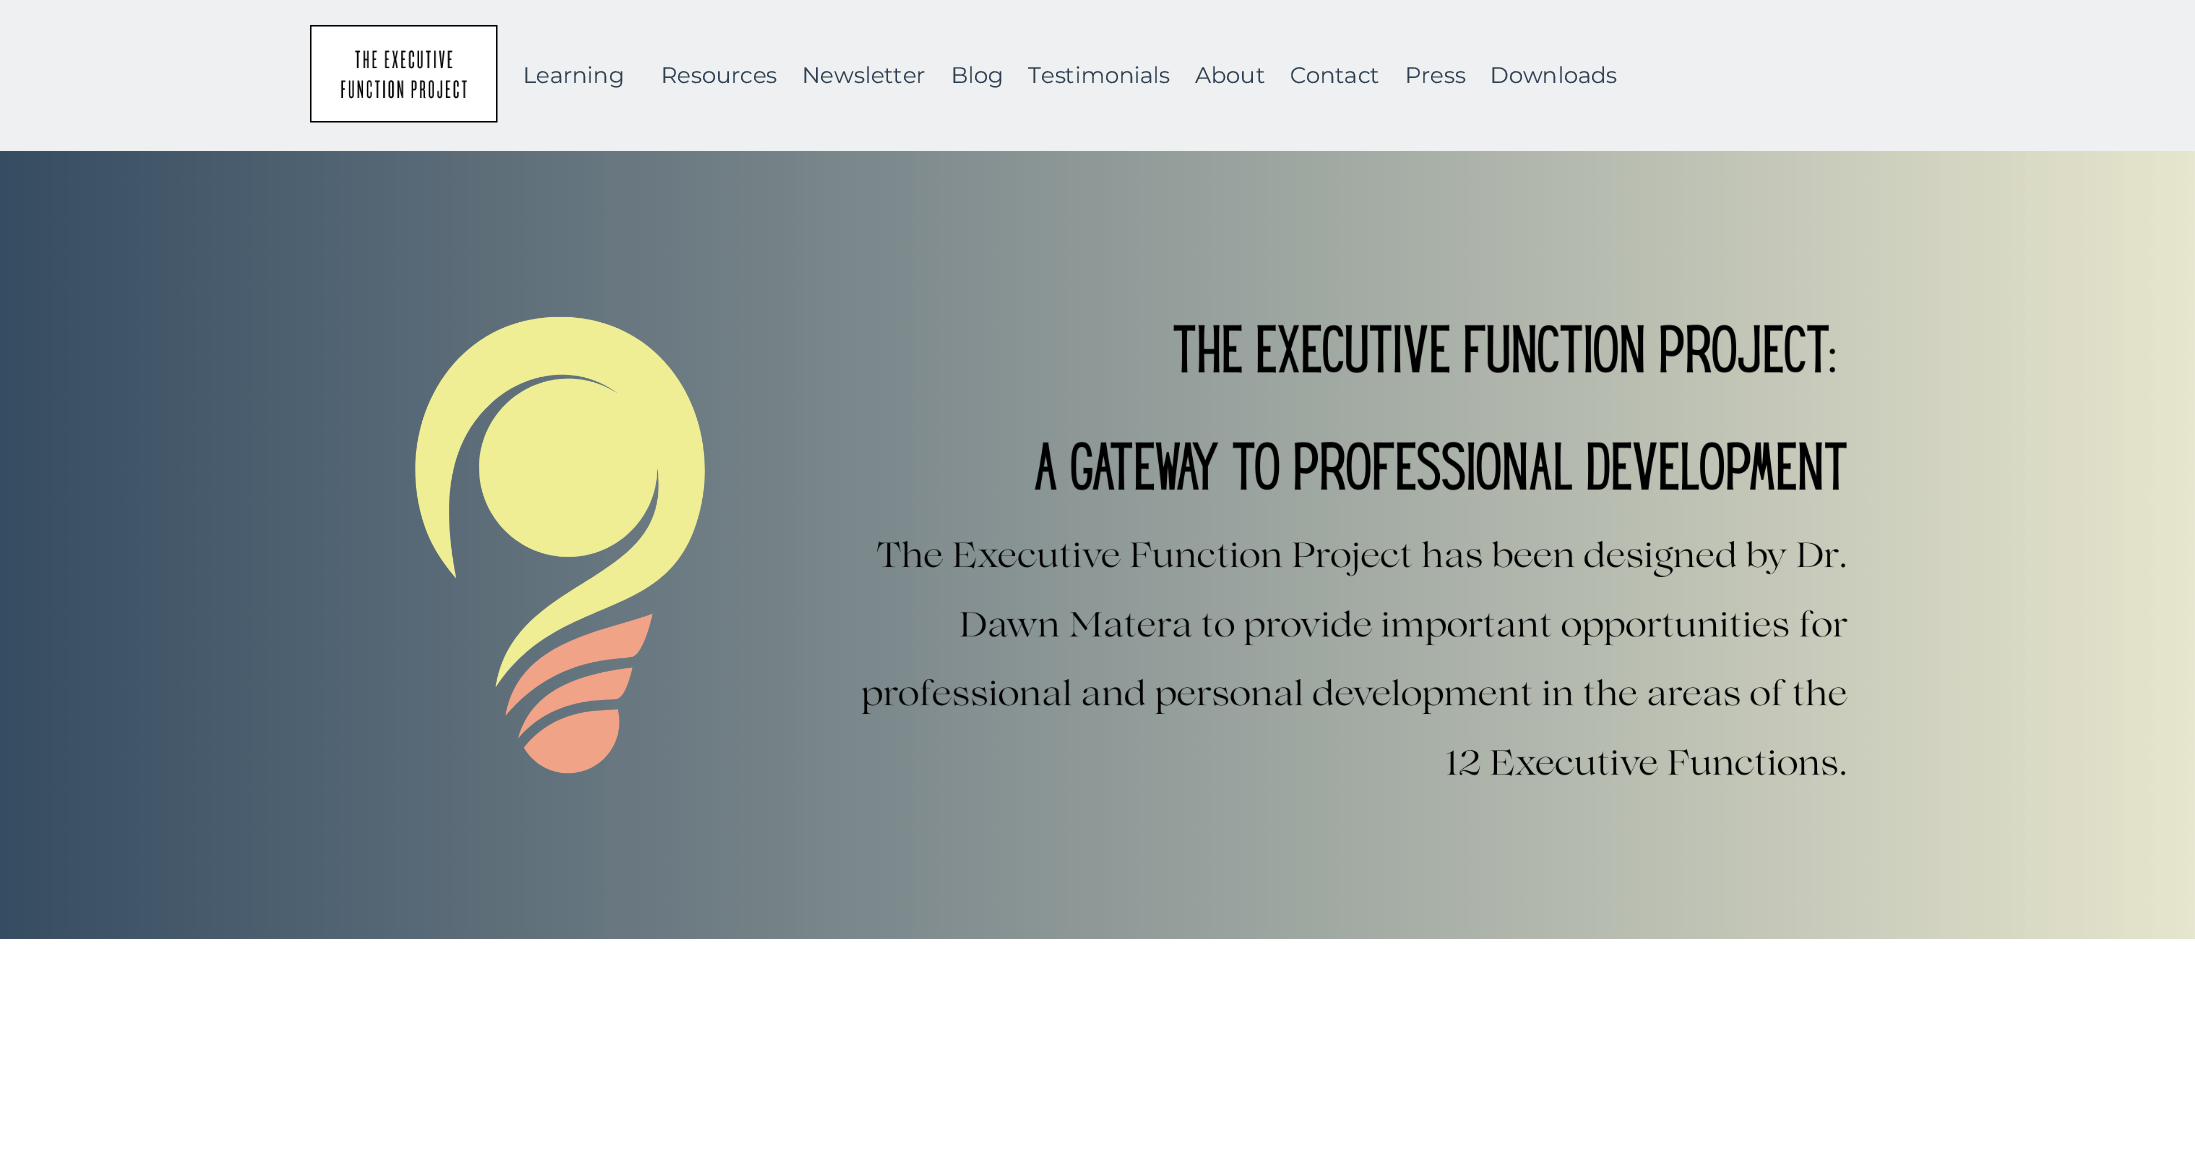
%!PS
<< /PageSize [2195 1167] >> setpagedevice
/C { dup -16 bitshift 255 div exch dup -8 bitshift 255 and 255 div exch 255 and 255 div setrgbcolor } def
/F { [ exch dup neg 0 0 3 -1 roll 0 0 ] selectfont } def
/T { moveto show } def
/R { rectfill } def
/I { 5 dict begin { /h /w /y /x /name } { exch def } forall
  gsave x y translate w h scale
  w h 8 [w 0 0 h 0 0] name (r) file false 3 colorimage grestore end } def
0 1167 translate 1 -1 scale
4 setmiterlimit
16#FFFFFF C
0 0 2195 1167 R
16#EEF0F2 C
0 0 2195 151 R
(1.rgb) 310 25 188 98 I
/Montserrat-Regular 22.5 F
16#2C3E50 C
(Learning) 523 83 T
(Resources) 661 83 T
(Newsletter) 802 83 T
(Blog) 951 83 T
(Testimonials) 1028 83 T
(About) 1195 83 T
(Contact) 1290 83 T
(Press) 1405 83 T
(Downloads) 1490 83 T
(2.rgb) 0 151 2195 788 I
(3.rgb) 415 316 290 458 I
(4.rgb) 861 324 987 452 I
showpage
